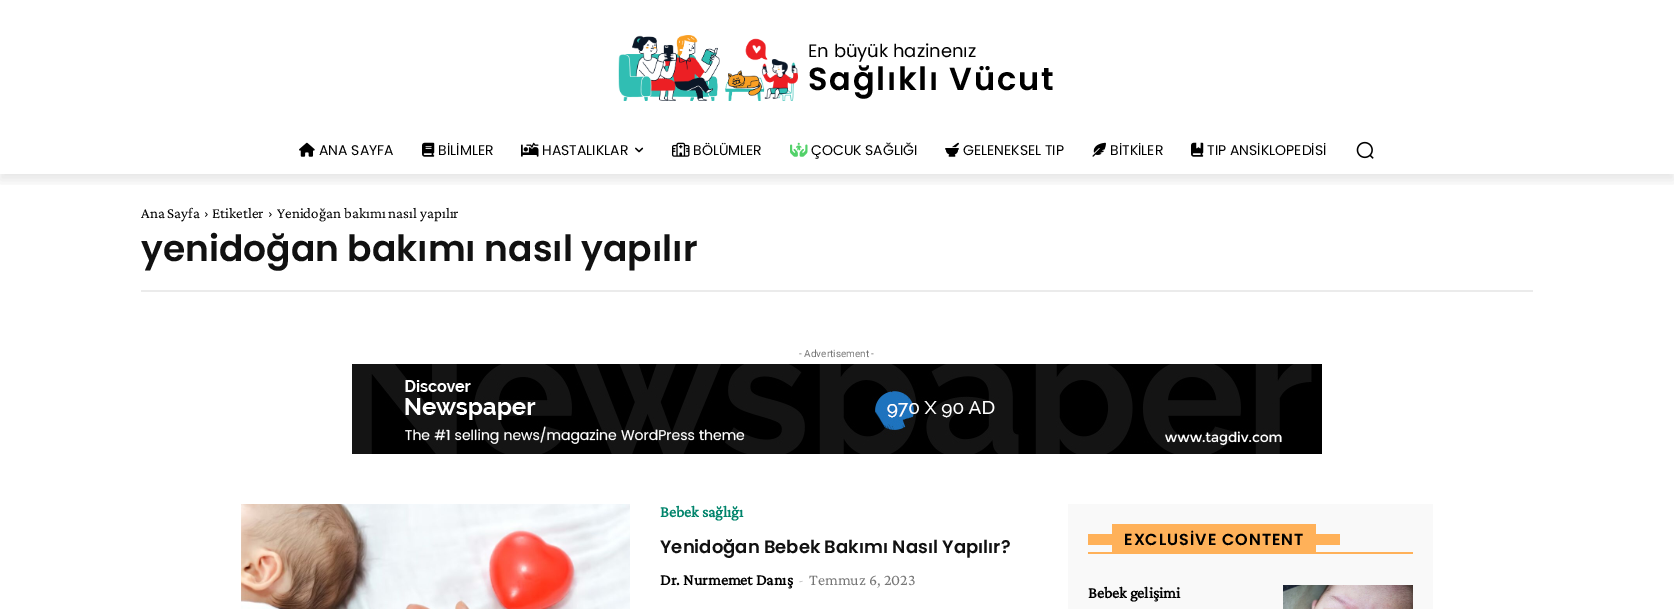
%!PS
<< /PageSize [1674 609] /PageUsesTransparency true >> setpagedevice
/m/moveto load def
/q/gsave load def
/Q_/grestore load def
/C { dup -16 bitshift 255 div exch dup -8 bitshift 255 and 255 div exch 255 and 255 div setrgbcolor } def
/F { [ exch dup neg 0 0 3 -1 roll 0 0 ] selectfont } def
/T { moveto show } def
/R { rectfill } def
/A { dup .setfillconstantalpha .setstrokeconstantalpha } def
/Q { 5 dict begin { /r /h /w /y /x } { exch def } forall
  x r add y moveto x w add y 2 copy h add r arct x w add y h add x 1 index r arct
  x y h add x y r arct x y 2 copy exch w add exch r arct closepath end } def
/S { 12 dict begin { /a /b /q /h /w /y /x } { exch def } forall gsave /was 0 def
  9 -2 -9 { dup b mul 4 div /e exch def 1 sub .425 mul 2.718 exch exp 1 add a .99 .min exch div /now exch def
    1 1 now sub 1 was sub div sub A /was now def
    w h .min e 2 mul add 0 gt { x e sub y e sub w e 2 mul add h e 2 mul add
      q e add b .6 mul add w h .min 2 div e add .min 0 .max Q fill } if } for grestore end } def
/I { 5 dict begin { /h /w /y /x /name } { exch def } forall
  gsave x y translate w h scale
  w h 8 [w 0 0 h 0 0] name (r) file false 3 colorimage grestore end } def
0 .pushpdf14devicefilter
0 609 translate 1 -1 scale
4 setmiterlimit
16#FFFFFF C
0 0 1674 609 R
(1.rgb) 618 35 180 66 I
q
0 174 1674 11 rectclip
16#000000 C
0 6 1674 174 0 6 .1 S
Q_
/Poppins-Regular 18 F
16#000000 C
(En büyük hazinenız) 808 57 T
/Poppins-SemiBold 32 F
808 90 m 1.75 0 (Sağlıklı Vücut) ashow
(2.rgb) 299 142 16 15 I
/Poppins-Regular 14 F
(ANA SAYFA) 319 155 T
(3.rgb) 422 142 13 15 I
(BİLİMLER) 438 155 T
(4.rgb) 521 142 18 15 I
(HASTALIKLAR) 542 155 T
(5.rgb) 635 147 9 6 I
(6.rgb) 672 142 18 15 I
(BÖLÜMLER) 693 155 T
(7.rgb) 790 142 18 15 I
(ÇOCUK SAĞLIĞI) 811 155 T
(8.rgb) 945 142 14 15 I
(GELENEKSEL TIP) 963 155 T
(9.rgb) 1092 142 14 15 I
(BİTKİLER) 1110 155 T
(10.rgb) 1191 142 13 15 I
(TIP ANSİKLOPEDİSİ) 1207 155 T
(11.rgb) 1356 141 18 18 I
/CrimsonPro-Regular 15 F
(Ana Sayfa) 141 218 T
(12.rgb) 205 212 3 5 I
(Etiketler) 212 218 T
(12.rgb) 269 212 3 5 I
(Yenidoğan bakımı nasıl yapılır) 277 218 T
/Poppins-SemiBold 36 F
16#111111 C
(yenidoğan bakımı nasıl yapılır) 141 261 T
16#EBEBEB C
141 290 1392 2 R
/Roboto-Regular 10 F
16#767676 C
(- Advertisement -) 799 357 T
(13.rgb) 352 364 970 90 I
(14.rgb) 241 504 389 105 I
/CrimsonPro-Bold 16 F
16#00846B C
(Bebek sağlığı) 660 517 T
/Poppins-SemiBold 18 F
16#111111 C
(Yenidoğan Bebek Bakımı Nasıl Yapılır?) 660 553 T
/CrimsonPro-Bold 16 F
16#000000 C
(Dr. Nurmemet Danış) 660 585 T
/CrimsonPro-Regular 16 F
16#CCCCCC C
(-) 798 585 T
16#767676 C
(Temmuz 6, 2023) 809 585 T
16#F9F9F9 C
1068 504 365 105 R
16#FFB159 C
1088 552 325 2 R
1088 534 24 11 R
1112 524 204 28 R
/Poppins-SemiBold 16 F
16#000000 C
1124 545 m 1 0 (EXCLUSİVE CONTENT) ashow
16#FFB159 C
1316 534 24 11 R
/CrimsonPro-Bold 16 F
16#000000 C
(Bebek gelişimi) 1088 598 T
(15.rgb) 1283 585 130 24 I
.poppdf14devicefilter showpage
